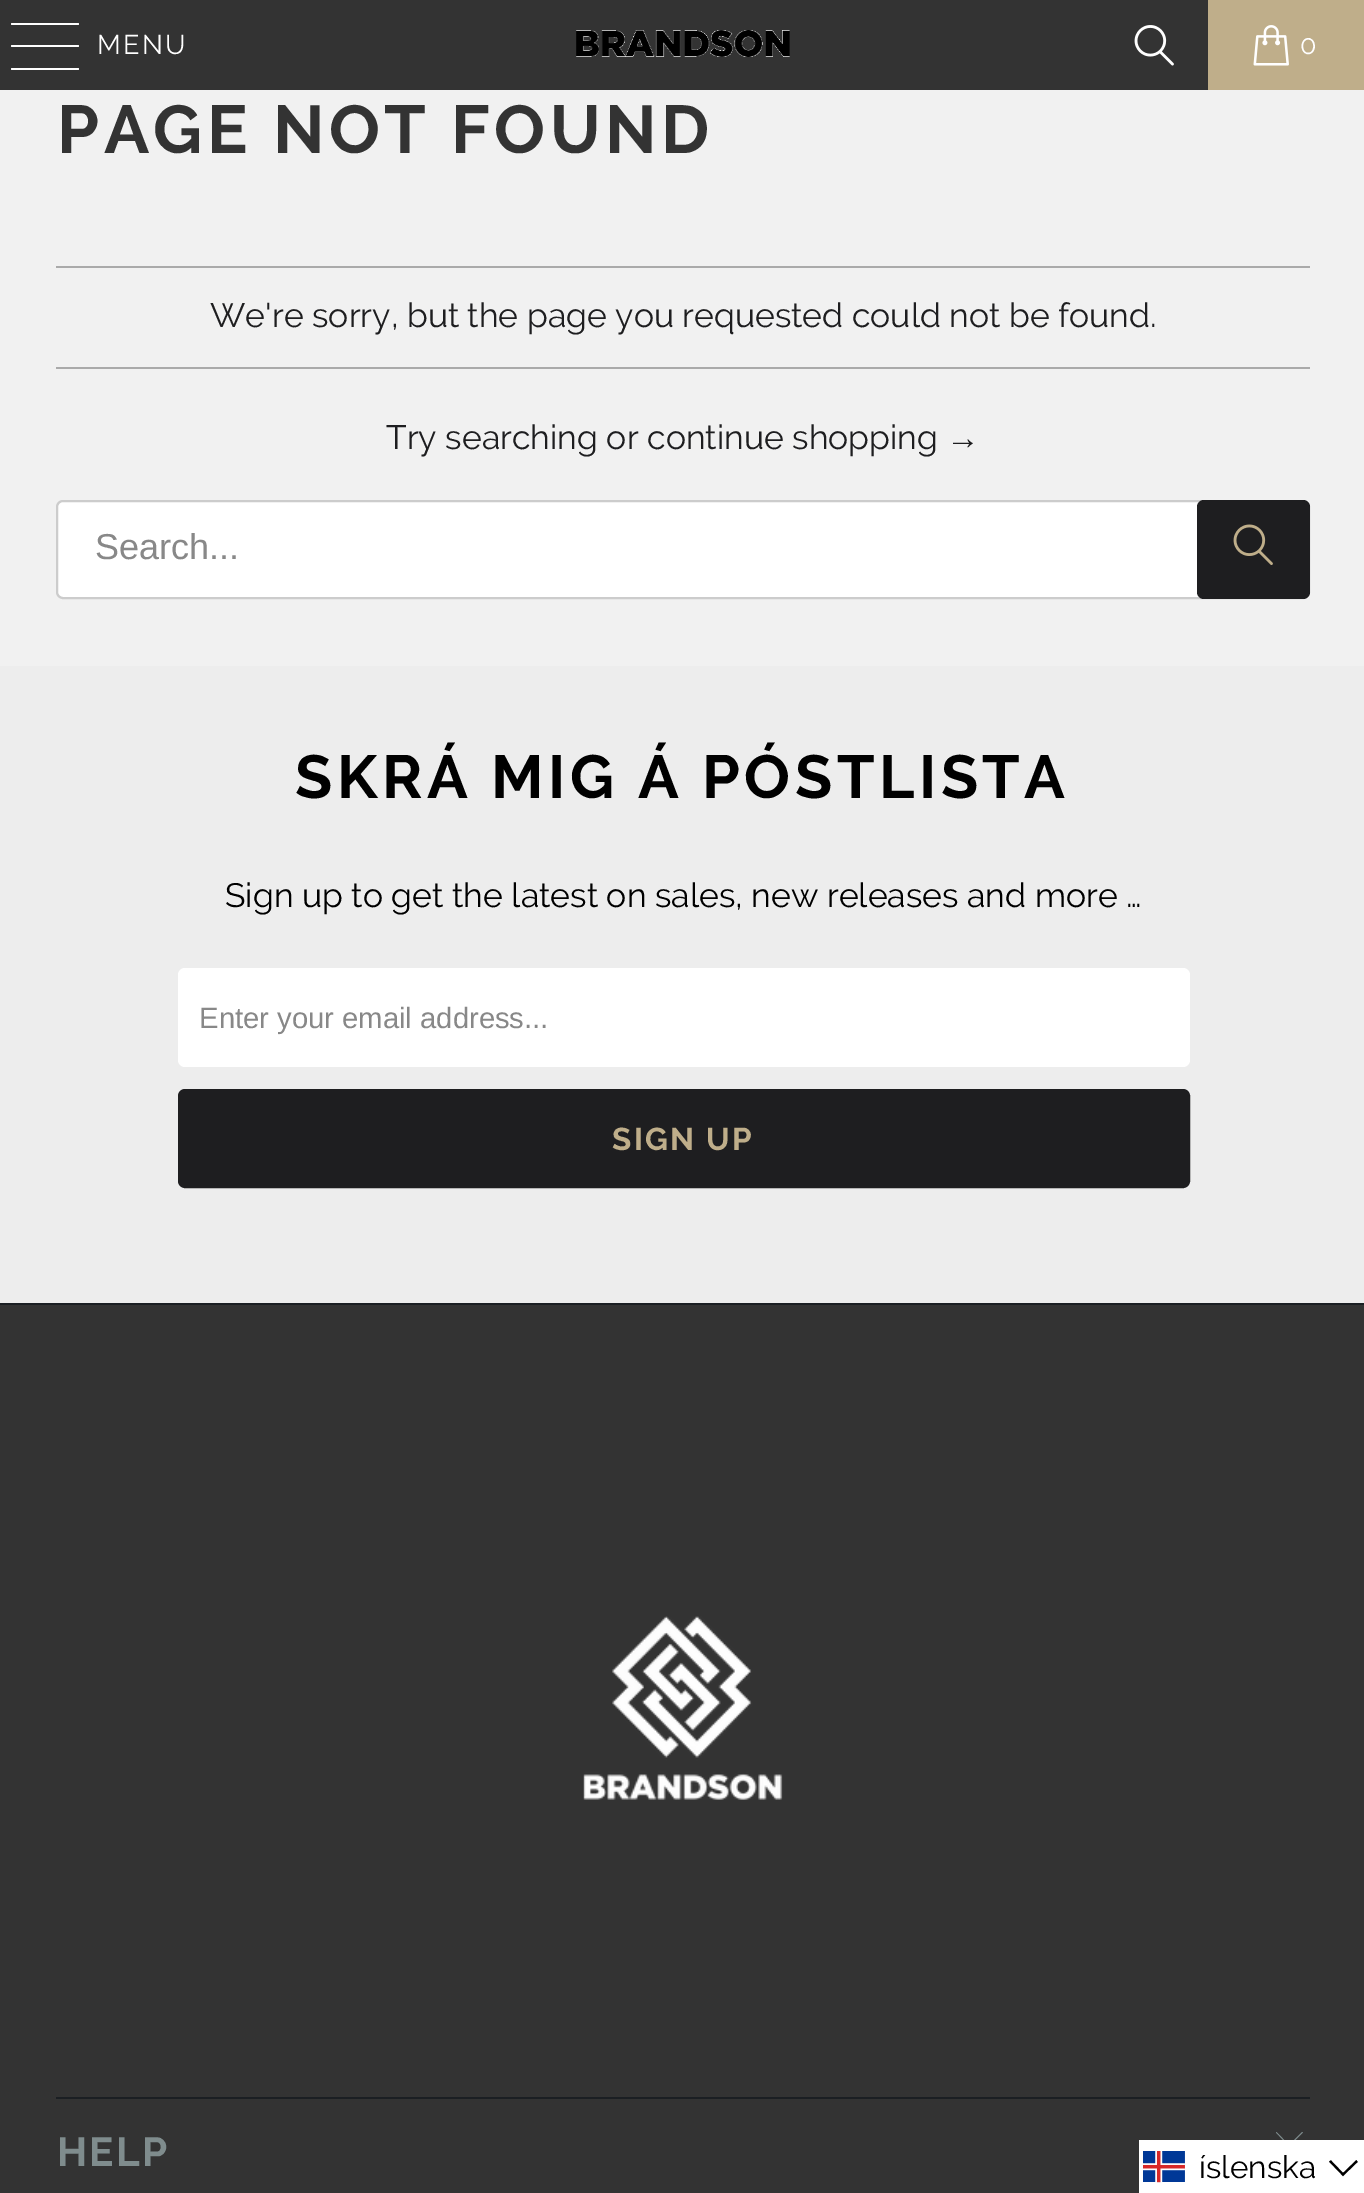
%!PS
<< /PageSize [1364 2193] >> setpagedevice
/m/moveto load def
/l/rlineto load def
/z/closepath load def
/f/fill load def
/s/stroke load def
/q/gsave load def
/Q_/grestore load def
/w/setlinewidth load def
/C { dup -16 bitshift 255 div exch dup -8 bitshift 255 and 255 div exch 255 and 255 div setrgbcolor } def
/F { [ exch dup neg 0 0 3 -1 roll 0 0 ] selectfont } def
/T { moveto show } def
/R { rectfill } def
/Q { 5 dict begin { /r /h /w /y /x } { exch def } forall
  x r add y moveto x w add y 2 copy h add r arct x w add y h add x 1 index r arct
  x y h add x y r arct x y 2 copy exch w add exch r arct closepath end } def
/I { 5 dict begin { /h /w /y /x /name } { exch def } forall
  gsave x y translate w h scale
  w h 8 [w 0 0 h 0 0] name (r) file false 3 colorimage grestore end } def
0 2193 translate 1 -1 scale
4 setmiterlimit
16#F1F1F1 C
0 0 1364 2193 R
16#333333 C
0 0 1208 90 R
16#FFFFFF C
11 23 68 2 1 Q f
11 45 68 2 1 Q f
11 68 68 2 1 Q f
/Raleway-Regular 27 F
97 54 m 2.25 0 (MENU) ashow
(1.rgb) 576 30 214 27 I
(2.rgb) 1134 25 40 41 I
16#BFAE8A C
1208 0 156 90 R
(3.rgb) 1253 25 36 41 I
16#FFFFFF C
1300 54 m 2.25 0 (0) ashow
/Raleway-Bold 67.5 F
16#333333 C
57 153 m 4.5 0 (PAGE NOT FOUND) ashow
16#AAAAAA C
56 266 1254 2 R
56 367 1254 2 R
/Raleway-Regular 33.75 F
16#1E1E20 C
(We're sorry, but the page you requested could not be found.) 210 327 T
(Try searching or continue shopping) 386 449 T
/LiberationSans-Regular 33.75 F
(→) 946 449 T
16#FFFFFF C
57 501 1252 97 6 Q q f Q_
16#CCCCCC C
2 w
s
/LiberationSans-Regular 36 F
16#888888 C
(Search...) 95 559 T
16#1E1E20 C
1197 500 113 99 7 Q f
(4.rgb) 1233 524 40 41 I
16#EDEDED C
0 666 1364 637 R
/Raleway-Bold 60.75 F
16#000000 C
295 798 m 4.5 0 (SKRÁ MIG Á PÓSTLISTA) ashow
/Raleway-Regular 33.75 F
(Sign up to get the latest on sales, new releases and more …) 225 907 T
16#FFFFFF C
178 968 1012 99 7 Q f
/LiberationSans-Regular 29.25 F
16#888888 C
(Enter your email address...) 199 1028 T
16#1E1E20 C
179 1090 1010 97 6 Q q f Q_
s
/Raleway-Bold 31.5 F
16#BFAE8A C
612 1150 m 2.25 0 (SIGN UP) ashow
16#333333 C
0 1305 1364 888 R
16#1B1F23 C
0 1303 1364 2 R
(5.rgb) 583 1616 200 184 I
56 2097 1254 2 R
/Raleway-Bold 40.5 F
16#7F8C8D C
57 2166 m 2.25 0 (HELP) ashow
1289 2146.5 m -13 -14 l .5 -.5 l 12.5 13 l 13 -13 l 1 .5 l z f
16#FFFFFF C
1139 2140 225 53 R
(6.rgb) 1143 2151 42 32 I
/Raleway-Regular 31.5 F
16#000000 C
(íslenska) 1199 2178 T
2.2 w
1330 2161 m 13 13.5 l 14 -13.5 l s
showpage
